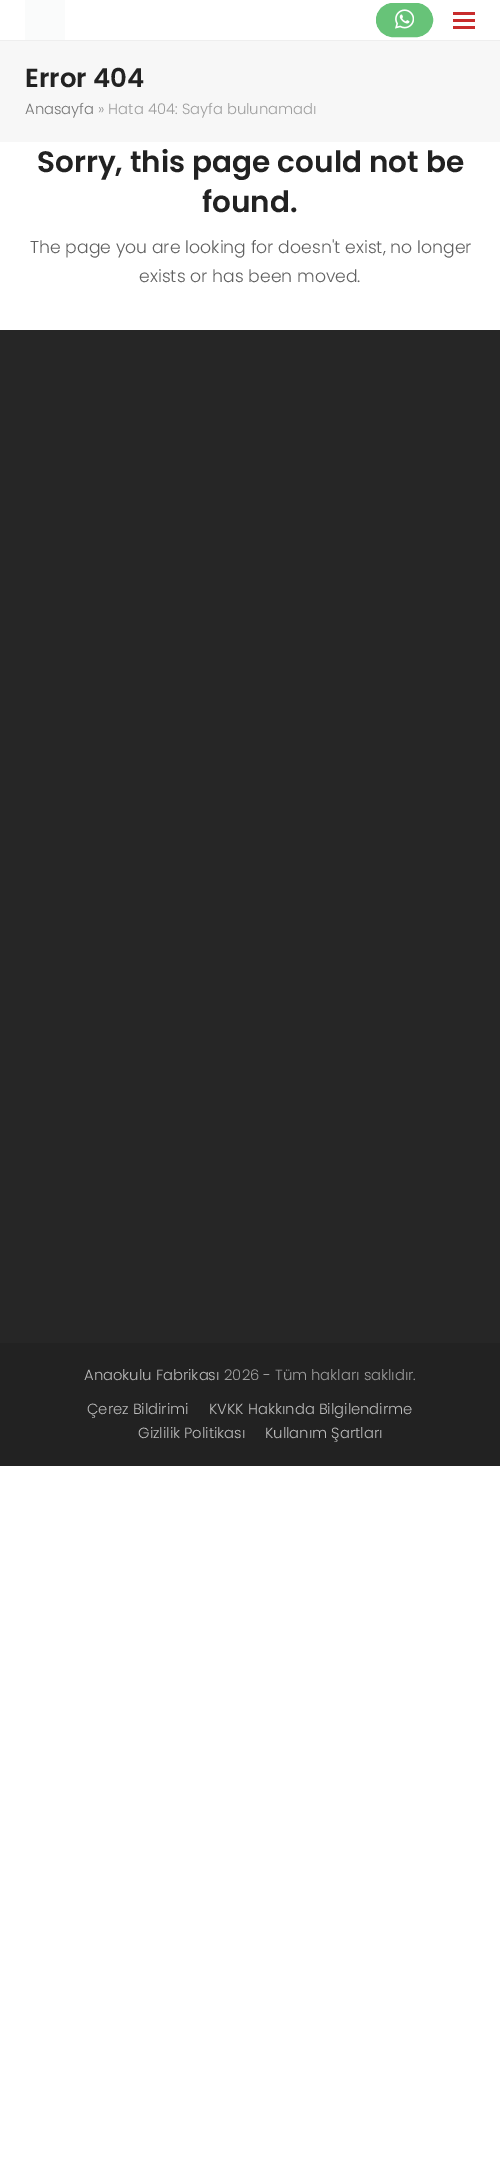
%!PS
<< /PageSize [500 2159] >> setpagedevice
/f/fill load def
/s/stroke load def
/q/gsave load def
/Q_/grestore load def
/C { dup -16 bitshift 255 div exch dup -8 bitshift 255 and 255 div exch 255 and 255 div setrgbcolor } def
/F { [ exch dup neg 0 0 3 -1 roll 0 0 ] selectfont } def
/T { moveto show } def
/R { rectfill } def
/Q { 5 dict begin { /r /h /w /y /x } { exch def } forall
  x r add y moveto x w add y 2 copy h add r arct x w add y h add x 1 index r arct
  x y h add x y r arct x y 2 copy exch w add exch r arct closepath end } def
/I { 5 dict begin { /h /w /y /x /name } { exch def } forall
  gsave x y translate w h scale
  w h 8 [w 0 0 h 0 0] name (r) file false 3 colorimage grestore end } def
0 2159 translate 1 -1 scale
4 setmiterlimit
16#FFFFFF C
0 0 500 2159 R
16#FAFBFB C
25 0 40 40 R
16#67C378 C
376.5 3.5 56 33 16.5 Q q f Q_
s
(1.rgb) 395 9 19 20 I
16#C82C2C C
453 19 22 3 R
453 12 22 3 R
453 26 22 3 R
16#F7F7F7 C
0 41 500 101 R
16#EEEEEE C
0 40 500 1 R
/Poppins-SemiBold 26 F
16#222222 C
(Error 404) 25 87 T
/Poppins-Light 14.75 F
16#757575 C
(Anasayfa) 25 114 T
16#9E9E9E C
(» Hata 404: Sayfa bulunamadı) 98 114 T
/Poppins-SemiBold 29.5 F
16#222222 C
(Sorry, this page could not be) 37 172 T
(found.) 202 212 T
/Poppins-Light 17.25 F
16#616161 C
(The page you are looking for doesn't exist, no longer) 30 253 T
(exists or has been moved.) 139 282 T
16#262626 C
0 330 500 1013 R
16#222222 C
0 1343 500 123 R
/Poppins-Light 14.75 F
16#BDBDBD C
(Anaokulu Fabrikası) 84 1380 T
16#9E9E9E C
(2026 - Tüm hakları saklıdır.) 224 1380 T
16#BDBDBD C
(Çerez Bildirimi) 87 1414 T
(KVKK Hakkında Bilgilendirme) 209 1414 T
(Gizlilik Politikası) 138 1438 T
(Kullanım Şartları) 265 1438 T
showpage
